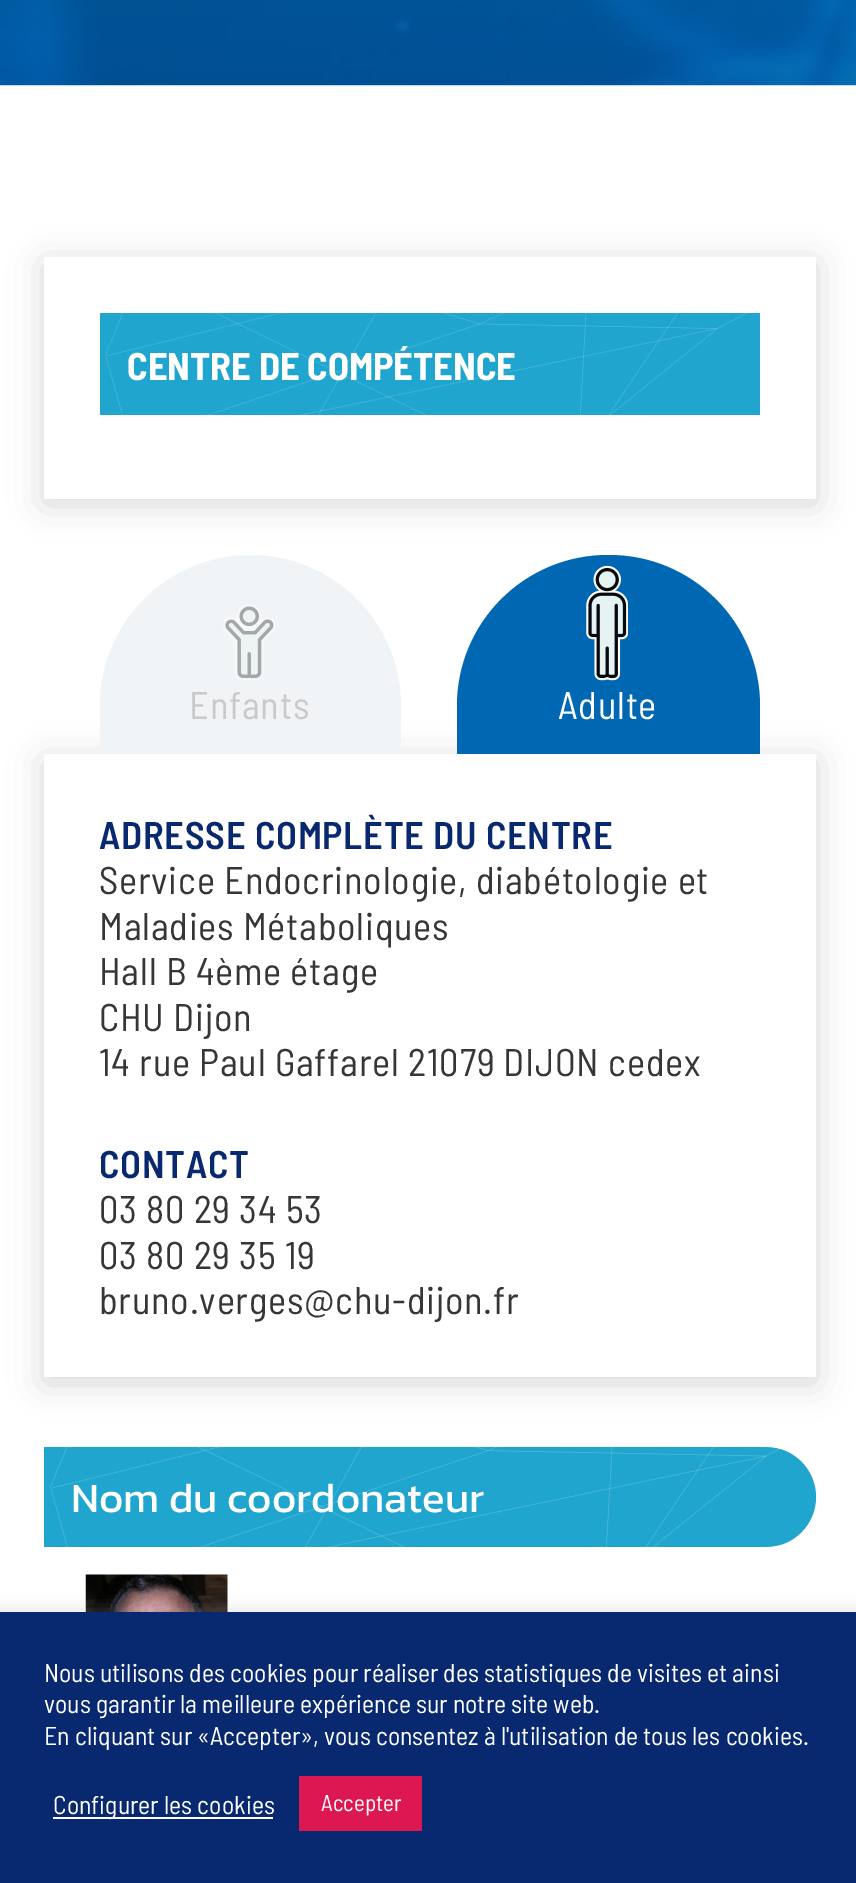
%!PS
<< /PageSize [856 1883] /PageUsesTransparency true >> setpagedevice
/m/moveto load def
/l/rlineto load def
/c/rcurveto load def
/z/closepath load def
/f/fill load def
/C { dup -16 bitshift 255 div exch dup -8 bitshift 255 and 255 div exch 255 and 255 div setrgbcolor } def
/F { [ exch dup neg 0 0 3 -1 roll 0 0 ] selectfont } def
/T { moveto show } def
/R { rectfill } def
/A { dup .setfillconstantalpha .setstrokeconstantalpha } def
/Q { 5 dict begin { /r /h /w /y /x } { exch def } forall
  x r add y moveto x w add y 2 copy h add r arct x w add y h add x 1 index r arct
  x y h add x y r arct x y 2 copy exch w add exch r arct closepath end } def
/S { 12 dict begin { /a /b /q /h /w /y /x } { exch def } forall gsave /was 0 def
  9 -2 -9 { dup b mul 4 div /e exch def 1 sub .425 mul 2.718 exch exp 1 add a .99 .min exch div /now exch def
    1 1 now sub 1 was sub div sub A /was now def
    w h .min e 2 mul add 0 gt { x e sub y e sub w e 2 mul add h e 2 mul add
      q e add b .6 mul add w h .min 2 div e add .min 0 .max Q fill } if } for grestore end } def
/I { 5 dict begin { /h /w /y /x /name } { exch def } forall
  gsave x y translate w h scale
  w h 8 [w 0 0 h 0 0] name (r) file false 3 colorimage grestore end } def
0 .pushpdf14devicefilter
0 1883 translate 1 -1 scale
4 setmiterlimit
16#FFFFFF C
0 0 856 1883 R
(1.rgb) 0 0 856 86 I
16#000000 C
44 263 772 241 0 17.5 .16 S
16#FFFFFF C
44 257 772 242 R
16#20A6CE C
100 313 660 102 R
(2.rgb) 105 313 642 102 I
/BarlowSemiCondensed-Bold 38.5 F
16#FFFFFF C
(CENTRE DE COMPÉTENCE) 127 380 T
16#000000 C
44 760 772 623 0 17.5 .16 S
16#F0F4F7 C
250.5 555 m 83 0 150.5 67.5 150.5 150.5 c 0 48.5 l -301 0 l 0 -48.5 l 0 -83 67.5 -150.5 150.5 -150.5 c z f
(3.rgb) 223 604 53 76 I
/BarlowSemiCondensed-Regular 38.5 F
16#C9C9C9 C
189 719 m .75 0 (Enfants) ashow
16#0067B2 C
608 555 m 1 0 l 83.5 0 151 67.5 151 151 c 0 48 l -303 0 l 0 -48 l 0 -83.5 67.5 -151 151 -151 c z f
(4.rgb) 586 565 42 116 I
16#FFFFFF C
558 719 m .75 0 (Adulte) ashow
44 754 772 623 R
/BarlowSemiCondensed-SemiBold 38.5 F
16#08286F C
99 849 m .75 0 (ADRESSE COMPLÈTE DU CENTRE) ashow
/BarlowSemiCondensed-Regular 38.5 F
16#363636 C
99 894 m .75 0 (Service Endocrinologie, diabétologie et) ashow
99 940 m .75 0 (Maladies Métaboliques) ashow
99 985 m .75 0 (Hall B 4ème étage) ashow
99 1031 m .75 0 (CHU Dijon) ashow
99 1076 m .75 0 (14 rue Paul Gaffarel 21079 DIJON cedex) ashow
/BarlowSemiCondensed-SemiBold 38.5 F
16#08286F C
99 1178 m .75 0 (CONTACT) ashow
/BarlowSemiCondensed-Regular 38.5 F
16#363636 C
99 1223 m .75 0 (03 80 29 34 53) ashow
99 1269 m .75 0 (03 80 29 35 19) ashow
99 1314 m .75 0 (bruno.verges@chu-dijon.fr) ashow
16#20A6CE C
44 1447 m 722 0 l 27.5 0 50 22.5 50 50 c 0 27.5 -22.5 50 -50 50 c -722 0 l z f
(5.rgb) 50 1447 730 100 I
/Kanit-Regular 42 F
16#FFFFFF C
(Nom du coordonateur) 71 1512 T
(6.rgb) 85 1574 143 38 I
16#ACABAB C
0 1610 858 271 0 9 .3 S
16#08286F C
0 1612 856 271 R
/BarlowSemiCondensed-Regular 25.7 F
16#FFFFFF C
(Nous utilisons des cookies pour réaliser des statistiques de visites et ainsi) 44 1682 T
(vous garantir la meilleure expérience sur notre site web.) 44 1713 T
(En cliquant sur «Accepter», vous consentez à l'utilisation de tous les cookies.) 44 1745 T
53 1817 220 2 R
(Configurer les cookies) 53 1814 T
16#DD1751 C
299 1776 123 55 R
/BarlowSemiCondensed-Regular 23 F
16#FFFFFF C
(Accepter) 321 1811 T
.poppdf14devicefilter showpage
